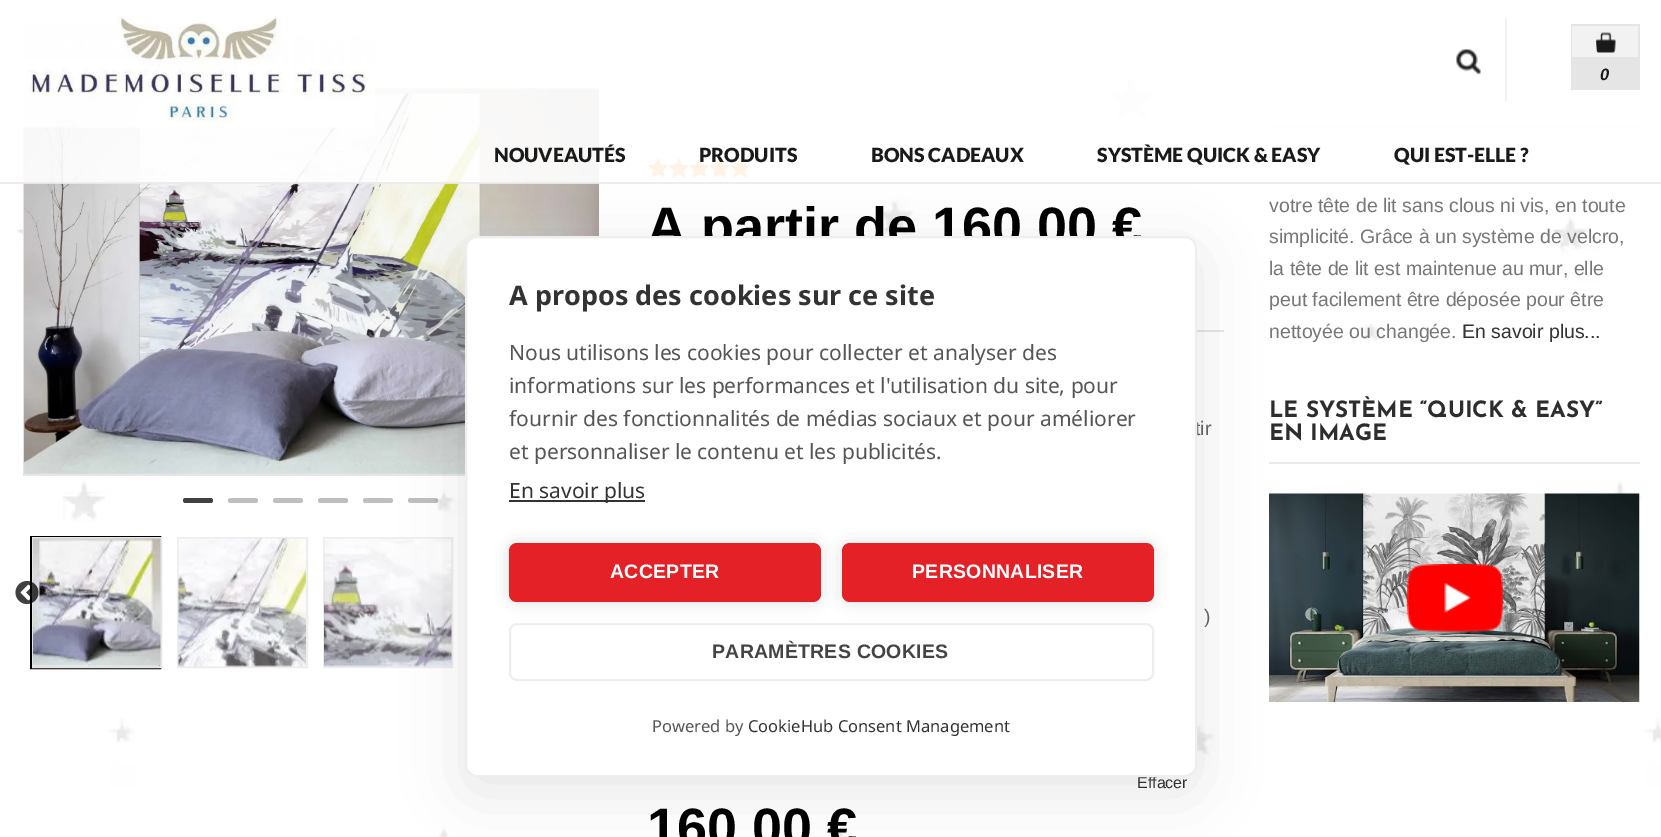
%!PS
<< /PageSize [1661 837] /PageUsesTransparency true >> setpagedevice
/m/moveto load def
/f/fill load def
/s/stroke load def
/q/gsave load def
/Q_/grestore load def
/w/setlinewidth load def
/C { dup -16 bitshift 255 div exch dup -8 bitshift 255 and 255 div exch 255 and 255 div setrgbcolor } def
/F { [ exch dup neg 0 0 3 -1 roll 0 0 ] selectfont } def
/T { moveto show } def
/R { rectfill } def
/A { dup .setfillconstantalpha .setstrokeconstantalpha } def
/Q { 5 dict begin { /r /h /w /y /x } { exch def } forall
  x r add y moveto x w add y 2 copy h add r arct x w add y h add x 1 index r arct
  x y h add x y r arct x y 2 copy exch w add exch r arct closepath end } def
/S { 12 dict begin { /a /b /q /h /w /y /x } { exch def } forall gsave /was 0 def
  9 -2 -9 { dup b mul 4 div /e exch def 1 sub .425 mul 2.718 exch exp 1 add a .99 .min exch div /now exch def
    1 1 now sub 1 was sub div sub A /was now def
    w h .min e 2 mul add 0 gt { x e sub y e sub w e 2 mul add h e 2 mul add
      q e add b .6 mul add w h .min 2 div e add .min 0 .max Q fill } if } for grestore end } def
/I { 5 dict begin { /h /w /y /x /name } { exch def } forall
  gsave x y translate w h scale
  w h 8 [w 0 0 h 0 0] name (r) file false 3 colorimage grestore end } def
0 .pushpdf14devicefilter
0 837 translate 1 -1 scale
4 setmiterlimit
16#FFFFFF C
0 0 1661 837 R
(1.rgb) 17 78 1644 759 I
q
23 87 576 389 rectclip
16#E6E6E6 C
2 w
24 88 578 387 rectstroke
Q_
(5.rgb) 23 88 576 386 I
(10.rgb) 648 158 103 19 I
(11.rgb) 648 158 103 19 I
(12.rgb) 648 160 9 17 I
16#EAEAEA C
1269 126 371 2 R
0.9 A
16#FFFFFF C
23 78 1617 105 R
16#EBEBEB C
0 182 1661 2 R
1 A
(2.rgb) 23 16 352 112 I
(3.rgb) 1456 49 25 26 I
0.9 A
16#F1F1F1 C
1505 18 2 83 R
16#E2E2E2 C
1571 24 69 66 R
1 A
16#F2F2F2 C
1572 26 66 31 R
(4.rgb) 1596 32 20 21 I
/LiberationSans-BoldItalic 16.5 F
16#1A1A1A C
(0) 1600 80 T
/Lato-Black 19.5 F
(NOUVEAUTÉS) 494 162 T
(PRODUITS) 699 162 T
(BONS CADEAUX) 871 162 T
(SYSTÈME QUICK & EASY) 1097 162 T
(QUI EST-ELLE ?) 1394 162 T
16#404040 C
183 498 30 5 2.5 Q f
16#BFBFBF C
228 498 30 5 2.5 Q f
273 498 30 5 2.5 Q f
318 498 30 5 2.5 Q f
363 498 30 5 2.5 Q f
0.25 A
16#000000 C
408 498 30 5 2.5 Q f
1 A
2 w
31 537 129 131 rectstroke
16#E6E6E6 C
33 538 128 129 rectstroke
(7.rgb) 33 538 128 129 I
(6.rgb) 15 581 24 23 I
16#EEEEEE C
178 538 129 129 rectstroke
(8.rgb) 178 538 128 129 I
324 538 128 129 rectstroke
(9.rgb) 324 538 128 129 I
16#E6E6E6 C
1197 330 27 2 R
/LiberationSans-Bold 54 F
16#000000 C
(A partir de 160,00 €) 647 245 T
/LiberationSans-Regular 19.5 F
16#636363 C
(tir) 1195 435 T
(\)) 1204 623 T
/LiberationSans-Regular 16 F
16#333333 C
(Effacer) 1137 788 T
/LiberationSans-Bold 54 F
16#000000 C
(160,00 €) 647 846 T
/LiberationSans-Regular 19.5 F
16#777777 C
(votre tête de lit sans clous ni vis, en toute) 1269 212 T
(simplicité. Grâce à un système de velcro,) 1269 243 T
(la tête de lit est maintenue au mur, elle) 1269 275 T
(peut facilement être déposée pour être) 1269 306 T
(nettoyée ou changée.) 1269 338 T
16#333333 C
(En savoir plus...) 1462 338 T
16#EAEAEA C
1269 462 371 2 R
/JosefinSans-Bold 22.5 F
16#2D2D2D C
(LE SYSTÈME “QUICK & EASY”) 1269 417 T
(EN IMAGE) 1269 440 T
(13.rgb) 1269 493 371 209 I
(14.rgb) 1407 564 96 68 I
16#000000 C
465 251 732 541 12 30 .1 S
16#FFFFFF C
466 237 730 539 11 Q q f Q_
16#EEEEEE C
s
/NotoSans-Bold 27 F
16#333333 C
(A propos des cookies sur ce site) 509 305 T
/NotoSans-Regular 21 F
16#555555 C
(Nous utilisons les cookies pour collecter et analyser des) 509 360 T
(informations sur les performances et l'utilisation du site, pour) 509 393 T
(fournir des fonctionnalités de médias sociaux et pour améliorer) 509 426 T
(et personnaliser le contenu et les publicités.) 509 459 T
16#333333 C
509 500 136 2 R
(En savoir plus) 509 498 T
16#000000 C
509 543 312 59 8 7.5 .12 S
16#E42127 C
509 543 312 59 8 Q f
/LiberationSans-Bold 19.5 F
16#FFFFFF C
610 578 m .25 0 (ACCEPTER) ashow
16#000000 C
842 543 312 59 8 7.5 .12 S
16#E42127 C
842 543 312 59 8 Q f
16#FFFFFF C
912 578 m .25 0 (PERSONNALISER) ashow
16#EEEEEE C
510 624 643 56 7 Q s
16#444444 C
712 658 m .25 0 (PARAMÈTRES COOKIES) ashow
/NotoSans-Regular 16.5 F
16#555555 C
(Powered by) 652 732 T
16#333333 C
(CookieHub Consent Management) 748 732 T
.poppdf14devicefilter showpage
